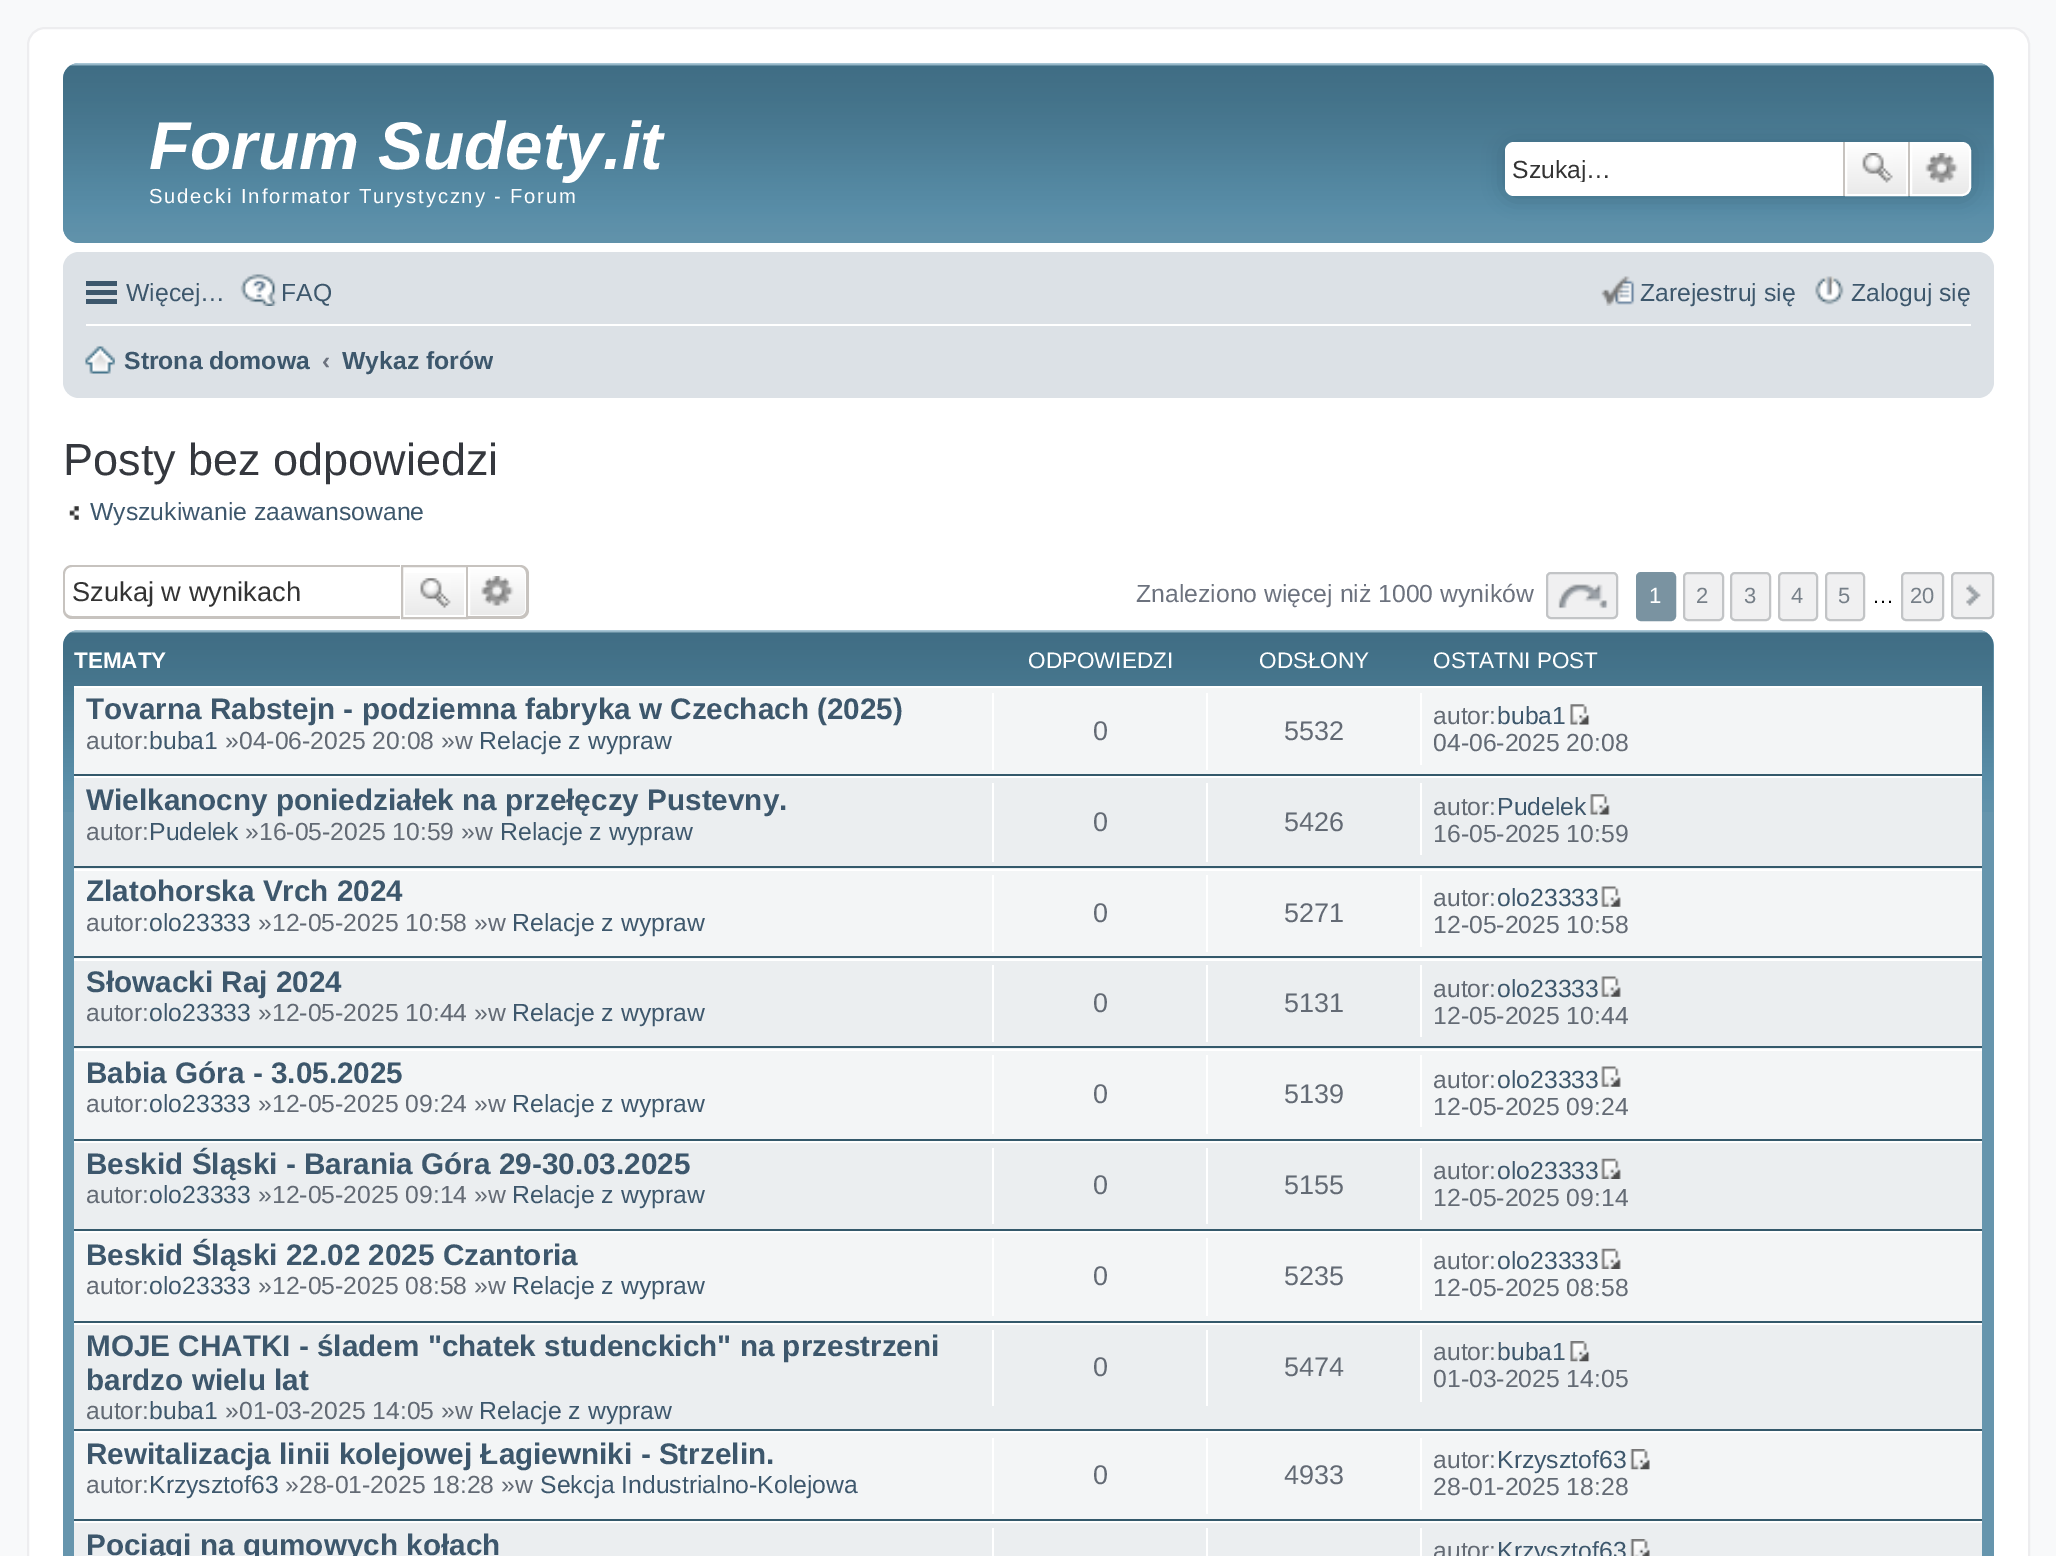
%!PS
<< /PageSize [2056 1556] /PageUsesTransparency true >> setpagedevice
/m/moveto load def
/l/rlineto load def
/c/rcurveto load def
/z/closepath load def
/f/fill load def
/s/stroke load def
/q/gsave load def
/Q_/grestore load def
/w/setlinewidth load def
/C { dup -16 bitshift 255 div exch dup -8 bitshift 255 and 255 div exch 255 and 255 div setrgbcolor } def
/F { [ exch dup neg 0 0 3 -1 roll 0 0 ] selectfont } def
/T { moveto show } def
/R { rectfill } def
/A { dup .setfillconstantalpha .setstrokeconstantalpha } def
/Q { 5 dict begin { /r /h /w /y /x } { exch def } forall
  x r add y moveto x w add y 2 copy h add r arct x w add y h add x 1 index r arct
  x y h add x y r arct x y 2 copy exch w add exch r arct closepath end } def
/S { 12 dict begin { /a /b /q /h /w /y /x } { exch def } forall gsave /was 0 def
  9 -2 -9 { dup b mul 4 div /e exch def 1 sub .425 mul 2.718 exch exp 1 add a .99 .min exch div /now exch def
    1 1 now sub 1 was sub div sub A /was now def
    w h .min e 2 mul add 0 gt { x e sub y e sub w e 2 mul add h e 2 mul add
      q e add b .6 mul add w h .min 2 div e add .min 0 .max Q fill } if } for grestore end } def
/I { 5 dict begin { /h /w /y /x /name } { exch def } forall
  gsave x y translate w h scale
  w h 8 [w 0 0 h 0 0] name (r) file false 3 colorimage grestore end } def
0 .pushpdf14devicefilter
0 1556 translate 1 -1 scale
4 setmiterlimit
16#F8F9FA C
0 0 2056 1556 R
16#FFFFFF C
28 28 2001 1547 17 Q q f Q_
16#EDEDEF C
2 w
s
16#6695AD C
63 63 1931 180 16 Q f
(1.rgb) 63 63 1931 180 I
/LiberationSans-BoldItalic 67.5 F
16#FFFFFF C
(Forum Sudety.it) 149 169 T
/LiberationSans-Regular 20.25 F
149 203 m 1.8 0 (Sudecki Informator Turystyczny - Forum) ashow
16#3F6C83 C
1505 142 466 54 9 11 1 S
16#FFFFFF C
1514 142 m 329 0 l 0 54 l -329 0 l -5 0 -9 -4 -9 -9 c 0 -36 l 0 -5 4 -9 9 -9 c z f
q
1512 155 297 27 rectclip
/LiberationSans-Regular 24.75 F
16#333333 C
(Szukaj…) 1512 178 T
Q_
q 1847 144 m 59 0 l 0 50 l -59 0 l z clip newpath
<< /ShadingType 2 /ColorSpace /DeviceRGB /Coords [1877 142 1877 196] /Extend [true true] /Function << /FunctionType 2 /Domain [0 1] /C0 [1 1 1] /C1 [.914 .914 .914] /N 1 >> >> shfill Q_
1846 143 61 52 rectstroke
16#C7C3BF C
1908 142 2 54 R
1843 142 2 54 R
(2.rgb) 1862 153 31 30 I
q 1911 143 m 51 0 l 4.5 0 8 3.5 8 8 c 0 36 l 0 4.5 -3.5 8 -8 8 c -51 0 l z clip newpath
<< /ShadingType 2 /ColorSpace /DeviceRGB /Coords [1941 142 1941 196] /Extend [true true] /Function << /FunctionType 2 /Domain [0 1] /C0 [1 1 1] /C1 [.914 .914 .914] /N 1 >> >> shfill Q_
16#FFFFFF C
1911 143 m 51 0 l 4.5 0 8 3.5 8 8 c 0 36 l 0 4.5 -3.5 8 -8 8 c -51 0 l z s
(3.rgb) 1925 153 33 30 I
16#DCE1E6 C
63 252 1931 146 16 Q f
16#3D576C C
86 281 31 5 R
86 290 31 5 R
86 299 31 5 R
/LiberationSans-Regular 24.75 F
(Więcej…) 126 301 T
(4.rgb) 240 274 37 32 I
(FAQ) 281 301 T
(5.rgb) 1601 276 34 30 I
(Zarejestruj się) 1640 301 T
(6.rgb) 1815 276 29 29 I
(Zaloguj się) 1851 301 T
16#FFFFFF C
86 324 1885 2 R
(7.rgb) 85 346 30 28 I
/LiberationSans-Bold 24.75 F
16#3D576C C
(Strona domowa) 124 369 T
16#6C727E C
(‹) 322 369 T
q
342 333 151 54 rectclip
16#3D576C C
(Wykaz forów) 342 369 T
Q_
/LiberationSans-Regular 45 F
16#35383E C
(Posty bez odpowiedzi) 63 475 T
(8.rgb) 69 506 10 14 I
/LiberationSans-Regular 24.75 F
16#3D576C C
(Wyszukiwanie zaawansowane) 90 520 T
16#C7C3BF C
72 565 m 328 0 l 0 54 l -328 0 l -5 0 -9 -4 -9 -9 c 0 -36 l 0 -5 4 -9 9 -9 c z 72 567 m 328 0 l 0 49 l -328 0 l -4 0 -7 -3 -7 -6 c 0 -36 l 0 -4 3 -7 7 -7 c z eofill
/LiberationSans-Regular 27.25 F
16#333333 C
(Szukaj w wynikach) 72 601 T
q 405 573 m 59 0 l 0 42 l -59 0 l z clip newpath
<< /ShadingType 2 /ColorSpace /DeviceRGB /Coords [434 567 434 617] /Extend [true true] /Function << /FunctionType 2 /Domain [0 1] /C0 [1 1 1] /C1 [.914 .914 .914] /N 1 >> >> shfill Q_
16#C7C3BF C
402 566 65 52 rectstroke
(9.rgb) 420 578 31 31 I
q 469 568 m 51 0 l 3.5 0 6 2.5 6 6 c 0 36 l 0 3.5 -2.5 6 -6 6 c -51 0 l z clip newpath
<< /ShadingType 2 /ColorSpace /DeviceRGB /Coords [497 567 497 617] /Extend [true true] /Function << /FunctionType 2 /Domain [0 1] /C0 [1 1 1] /C1 [.914 .914 .914] /N 1 >> >> shfill Q_
16#FFFFFF C
469 568 m 51 0 l 3.5 0 6 2.5 6 6 c 0 36 l 0 3.5 -2.5 6 -6 6 c -51 0 l z s
16#C7C3BF C
468 565 m 52 0 l 5 0 9 4 9 9 c 0 36 l 0 5 -4 9 -9 9 c -52 0 l z 468 567 m 52 0 l 3 0 6 3 6 7 c 0 36 l 0 3 -3 6 -6 6 c -52 0 l z eofill
(10.rgb) 481 576 33 30 I
/LiberationSans-Regular 24.75 F
16#6C727E C
(Znaleziono więcej niż 1000 wyników) 1136 602 T
16#F0F0F1 C
1546 572 72 47 5 Q f
(11.rgb) 1558 584 50 25 I
16#C2C4C6 C
1547 573 70 45 4 Q s
16#7A93A1 C
1637 573 38 47 4 Q q f Q_
s
/LiberationSans-Regular 22 F
16#FFFFFF C
(1) 1649 603 T
16#F0F0F1 C
1684 573 39 47 4 Q q f Q_
16#C2C4C6 C
s
16#767F88 C
(2) 1696 603 T
16#F0F0F1 C
1731 573 39 47 4 Q q f Q_
16#C2C4C6 C
s
16#767F88 C
(3) 1744 603 T
16#F0F0F1 C
1779 573 38 47 4 Q q f Q_
16#C2C4C6 C
s
16#767F88 C
(4) 1791 603 T
16#F0F0F1 C
1826 573 38 47 4 Q q f Q_
16#C2C4C6 C
s
16#767F88 C
(5) 1838 603 T
16#000000 C
(…) 1872 603 T
16#F0F0F1 C
1902 573 41 47 4 Q q f Q_
16#C2C4C6 C
s
16#767F88 C
(20) 1910 603 T
16#F0F0F1 C
1951 572 43 47 5 Q f
(12.rgb) 1966 584 15 22 I
16#C2C4C6 C
1952 573 41 45 4 Q s
16#6695AD C
63 630 1931 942 16 Q f
(13.rgb) 63 630 1931 182 I
/LiberationSans-Bold 22.5 F
16#FFFFFF C
(TEMATY) 74 668 T
/LiberationSans-Regular 22.5 F
(ODPOWIEDZI) 1028 668 T
(ODSŁONY) 1259 668 T
(OSTATNI POST) 1433 668 T
16#F3F5F6 C
74 688 1908 86 R
16#FFFFFF C
74 686 1908 2 R
16#34596B C
74 774 1908 2 R
/LiberationSans-Bold 29.7 F
16#3D576C C
(Tovarna Rabstejn - podziemna fabryka w Czechach \(2025\)) 86 719 T
/LiberationSans-Regular 24.75 F
16#636A74 C
(autor:) 86 749 T
16#3D576C C
(buba1) 149 749 T
16#636A74 C
(»04-06-2025 20:08 »w) 225 749 T
16#3D576C C
(Relacje z wypraw) 479 749 T
16#FFFFFF C
992 693 2 77 R
/LiberationSans-Regular 27 F
16#636A74 C
(0) 1093 740 T
16#FFFFFF C
1206 693 2 77 R
16#636A74 C
(5532) 1284 740 T
16#FFFFFF C
1420 693 2 72 R
/LiberationSans-Regular 24.75 F
16#636A74 C
(autor:) 1433 724 T
16#3D576C C
(buba1) 1497 724 T
(14.rgb) 1570 704 20 21 I
16#636A74 C
(04-06-2025 20:08) 1433 751 T
16#EBEEF0 C
74 778 1908 91 R
16#FFFFFF C
74 776 1908 2 R
16#34596B C
74 866 1908 2 R
/LiberationSans-Bold 29.7 F
16#3D576C C
(Wielkanocny poniedziałek na przełęczy Pustevny.) 86 810 T
/LiberationSans-Regular 24.75 F
16#636A74 C
(autor:) 86 840 T
16#3D576C C
(Pudelek) 149 840 T
16#636A74 C
(»16-05-2025 10:59 »w) 245 840 T
16#3D576C C
(Relacje z wypraw) 500 840 T
16#FFFFFF C
992 783 2 79 R
/LiberationSans-Regular 27 F
16#636A74 C
(0) 1093 831 T
16#FFFFFF C
1206 783 2 79 R
16#636A74 C
(5426) 1284 831 T
16#FFFFFF C
1420 783 2 72 R
/LiberationSans-Regular 24.75 F
16#636A74 C
(autor:) 1433 815 T
16#3D576C C
(Pudelek) 1497 815 T
(15.rgb) 1590 794 20 21 I
16#636A74 C
(16-05-2025 10:59) 1433 842 T
16#F3F5F6 C
74 871 1908 88 R
16#FFFFFF C
74 869 1908 2 R
16#34596B C
74 956 1908 2 R
/LiberationSans-Bold 29.7 F
16#3D576C C
(Zlatohorska Vrch 2024) 86 901 T
/LiberationSans-Regular 24.75 F
16#636A74 C
(autor:) 86 931 T
16#3D576C C
(olo23333) 149 931 T
16#636A74 C
(»12-05-2025 10:58 »w) 258 931 T
16#3D576C C
(Relacje z wypraw) 512 931 T
16#FFFFFF C
992 875 2 77 R
/LiberationSans-Regular 27 F
16#636A74 C
(0) 1093 922 T
16#FFFFFF C
1206 875 2 77 R
16#636A74 C
(5271) 1284 922 T
16#FFFFFF C
1420 875 2 72 R
/LiberationSans-Regular 24.75 F
16#636A74 C
(autor:) 1433 906 T
16#3D576C C
(olo23333) 1497 906 T
(16.rgb) 1601 886 20 21 I
16#636A74 C
(12-05-2025 10:58) 1433 933 T
16#EBEEF0 C
74 961 1908 88 R
16#FFFFFF C
74 959 1908 2 R
16#34596B C
74 1046 1908 2 R
/LiberationSans-Bold 29.7 F
16#3D576C C
(Słowacki Raj 2024) 86 992 T
/LiberationSans-Regular 24.75 F
16#636A74 C
(autor:) 86 1021 T
16#3D576C C
(olo23333) 149 1021 T
16#636A74 C
(»12-05-2025 10:44 »w) 258 1021 T
16#3D576C C
(Relacje z wypraw) 512 1021 T
16#FFFFFF C
992 965 2 77 R
/LiberationSans-Regular 27 F
16#636A74 C
(0) 1093 1012 T
16#FFFFFF C
1206 965 2 77 R
16#636A74 C
(5131) 1284 1012 T
16#FFFFFF C
1420 965 2 72 R
/LiberationSans-Regular 24.75 F
16#636A74 C
(autor:) 1433 997 T
16#3D576C C
(olo23333) 1497 997 T
(17.rgb) 1601 976 20 21 I
16#636A74 C
(12-05-2025 10:44) 1433 1024 T
16#F3F5F6 C
74 1051 1908 88 R
16#FFFFFF C
74 1049 1908 2 R
16#34596B C
74 1139 1908 2 R
/LiberationSans-Bold 29.7 F
16#3D576C C
(Babia Góra - 3.05.2025) 86 1083 T
/LiberationSans-Regular 24.75 F
16#636A74 C
(autor:) 86 1112 T
16#3D576C C
(olo23333) 149 1112 T
16#636A74 C
(»12-05-2025 09:24 »w) 258 1112 T
16#3D576C C
(Relacje z wypraw) 512 1112 T
16#FFFFFF C
992 1055 2 79 R
/LiberationSans-Regular 27 F
16#636A74 C
(0) 1093 1103 T
16#FFFFFF C
1206 1055 2 79 R
16#636A74 C
(5139) 1284 1103 T
16#FFFFFF C
1420 1055 2 72 R
/LiberationSans-Regular 24.75 F
16#636A74 C
(autor:) 1433 1088 T
16#3D576C C
(olo23333) 1497 1088 T
(16.rgb) 1601 1066 20 21 I
16#636A74 C
(12-05-2025 09:24) 1433 1115 T
16#EBEEF0 C
74 1143 1908 86 R
16#FFFFFF C
74 1141 1908 2 R
16#34596B C
74 1229 1908 2 R
/LiberationSans-Bold 29.7 F
16#3D576C C
(Beskid Śląski - Barania Góra 29-30.03.2025) 86 1174 T
/LiberationSans-Regular 24.75 F
16#636A74 C
(autor:) 86 1203 T
16#3D576C C
(olo23333) 149 1203 T
16#636A74 C
(»12-05-2025 09:14 »w) 258 1203 T
16#3D576C C
(Relacje z wypraw) 512 1203 T
16#FFFFFF C
992 1148 2 76 R
/LiberationSans-Regular 27 F
16#636A74 C
(0) 1093 1194 T
16#FFFFFF C
1206 1148 2 76 R
16#636A74 C
(5155) 1284 1194 T
16#FFFFFF C
1420 1148 2 72 R
/LiberationSans-Regular 24.75 F
16#636A74 C
(autor:) 1433 1179 T
16#3D576C C
(olo23333) 1497 1179 T
(18.rgb) 1601 1158 20 21 I
16#636A74 C
(12-05-2025 09:14) 1433 1206 T
16#F3F5F6 C
74 1233 1908 88 R
16#FFFFFF C
74 1231 1908 2 R
16#34596B C
74 1321 1908 2 R
/LiberationSans-Bold 29.7 F
16#3D576C C
(Beskid Śląski 22.02 2025 Czantoria) 86 1265 T
/LiberationSans-Regular 24.75 F
16#636A74 C
(autor:) 86 1294 T
16#3D576C C
(olo23333) 149 1294 T
16#636A74 C
(»12-05-2025 08:58 »w) 258 1294 T
16#3D576C C
(Relacje z wypraw) 512 1294 T
16#FFFFFF C
992 1238 2 78 R
/LiberationSans-Regular 27 F
16#636A74 C
(0) 1093 1285 T
16#FFFFFF C
1206 1238 2 78 R
16#636A74 C
(5235) 1284 1285 T
16#FFFFFF C
1420 1238 2 72 R
/LiberationSans-Regular 24.75 F
16#636A74 C
(autor:) 1433 1269 T
16#3D576C C
(olo23333) 1497 1269 T
(19.rgb) 1601 1248 20 21 I
16#636A74 C
(12-05-2025 08:58) 1433 1296 T
16#EBEEF0 C
74 1325 1908 104 R
16#FFFFFF C
74 1323 1908 2 R
16#34596B C
74 1429 1908 2 R
/LiberationSans-Bold 29.7 F
16#3D576C C
(MOJE CHATKI - śladem "chatek studenckich" na przestrzeni) 86 1356 T
(bardzo wielu lat) 86 1390 T
/LiberationSans-Regular 24.75 F
16#636A74 C
(autor:) 86 1419 T
16#3D576C C
(buba1) 149 1419 T
16#636A74 C
(»01-03-2025 14:05 »w) 225 1419 T
16#3D576C C
(Relacje z wypraw) 479 1419 T
16#FFFFFF C
992 1330 2 76 R
/LiberationSans-Regular 27 F
16#636A74 C
(0) 1093 1376 T
16#FFFFFF C
1206 1330 2 76 R
16#636A74 C
(5474) 1284 1376 T
16#FFFFFF C
1420 1330 2 72 R
/LiberationSans-Regular 24.75 F
16#636A74 C
(autor:) 1433 1360 T
16#3D576C C
(buba1) 1497 1360 T
(20.rgb) 1570 1341 20 21 I
16#636A74 C
(01-03-2025 14:05) 1433 1387 T
16#F3F5F6 C
74 1433 1908 86 R
16#FFFFFF C
74 1431 1908 2 R
16#34596B C
74 1519 1908 2 R
/LiberationSans-Bold 29.7 F
16#3D576C C
(Rewitalizacja linii kolejowej Łagiewniki - Strzelin.) 86 1464 T
/LiberationSans-Regular 24.75 F
16#636A74 C
(autor:) 86 1493 T
16#3D576C C
(Krzysztof63) 149 1493 T
16#636A74 C
(»28-01-2025 18:28 »w) 285 1493 T
16#3D576C C
(Sekcja Industrialno-Kolejowa) 540 1493 T
16#FFFFFF C
992 1438 2 76 R
/LiberationSans-Regular 27 F
16#636A74 C
(0) 1093 1484 T
16#FFFFFF C
1206 1438 2 76 R
16#636A74 C
(4933) 1284 1484 T
16#FFFFFF C
1420 1438 2 72 R
/LiberationSans-Regular 24.75 F
16#636A74 C
(autor:) 1433 1468 T
16#3D576C C
(Krzysztof63) 1497 1468 T
(21.rgb) 1630 1449 20 21 I
16#636A74 C
(28-01-2025 18:28) 1433 1495 T
16#EBEEF0 C
74 1523 1908 33 R
16#FFFFFF C
74 1521 1908 2 R
/LiberationSans-Bold 29.7 F
16#3D576C C
(Pociągi na gumowych kołach) 86 1555 T
16#FFFFFF C
992 1528 2 28 R
1206 1528 2 28 R
1420 1528 2 28 R
/LiberationSans-Regular 24.75 F
16#636A74 C
(autor:) 1433 1559 T
16#3D576C C
(Krzysztof63) 1497 1559 T
(22.rgb) 1630 1539 20 17 I
.poppdf14devicefilter showpage
